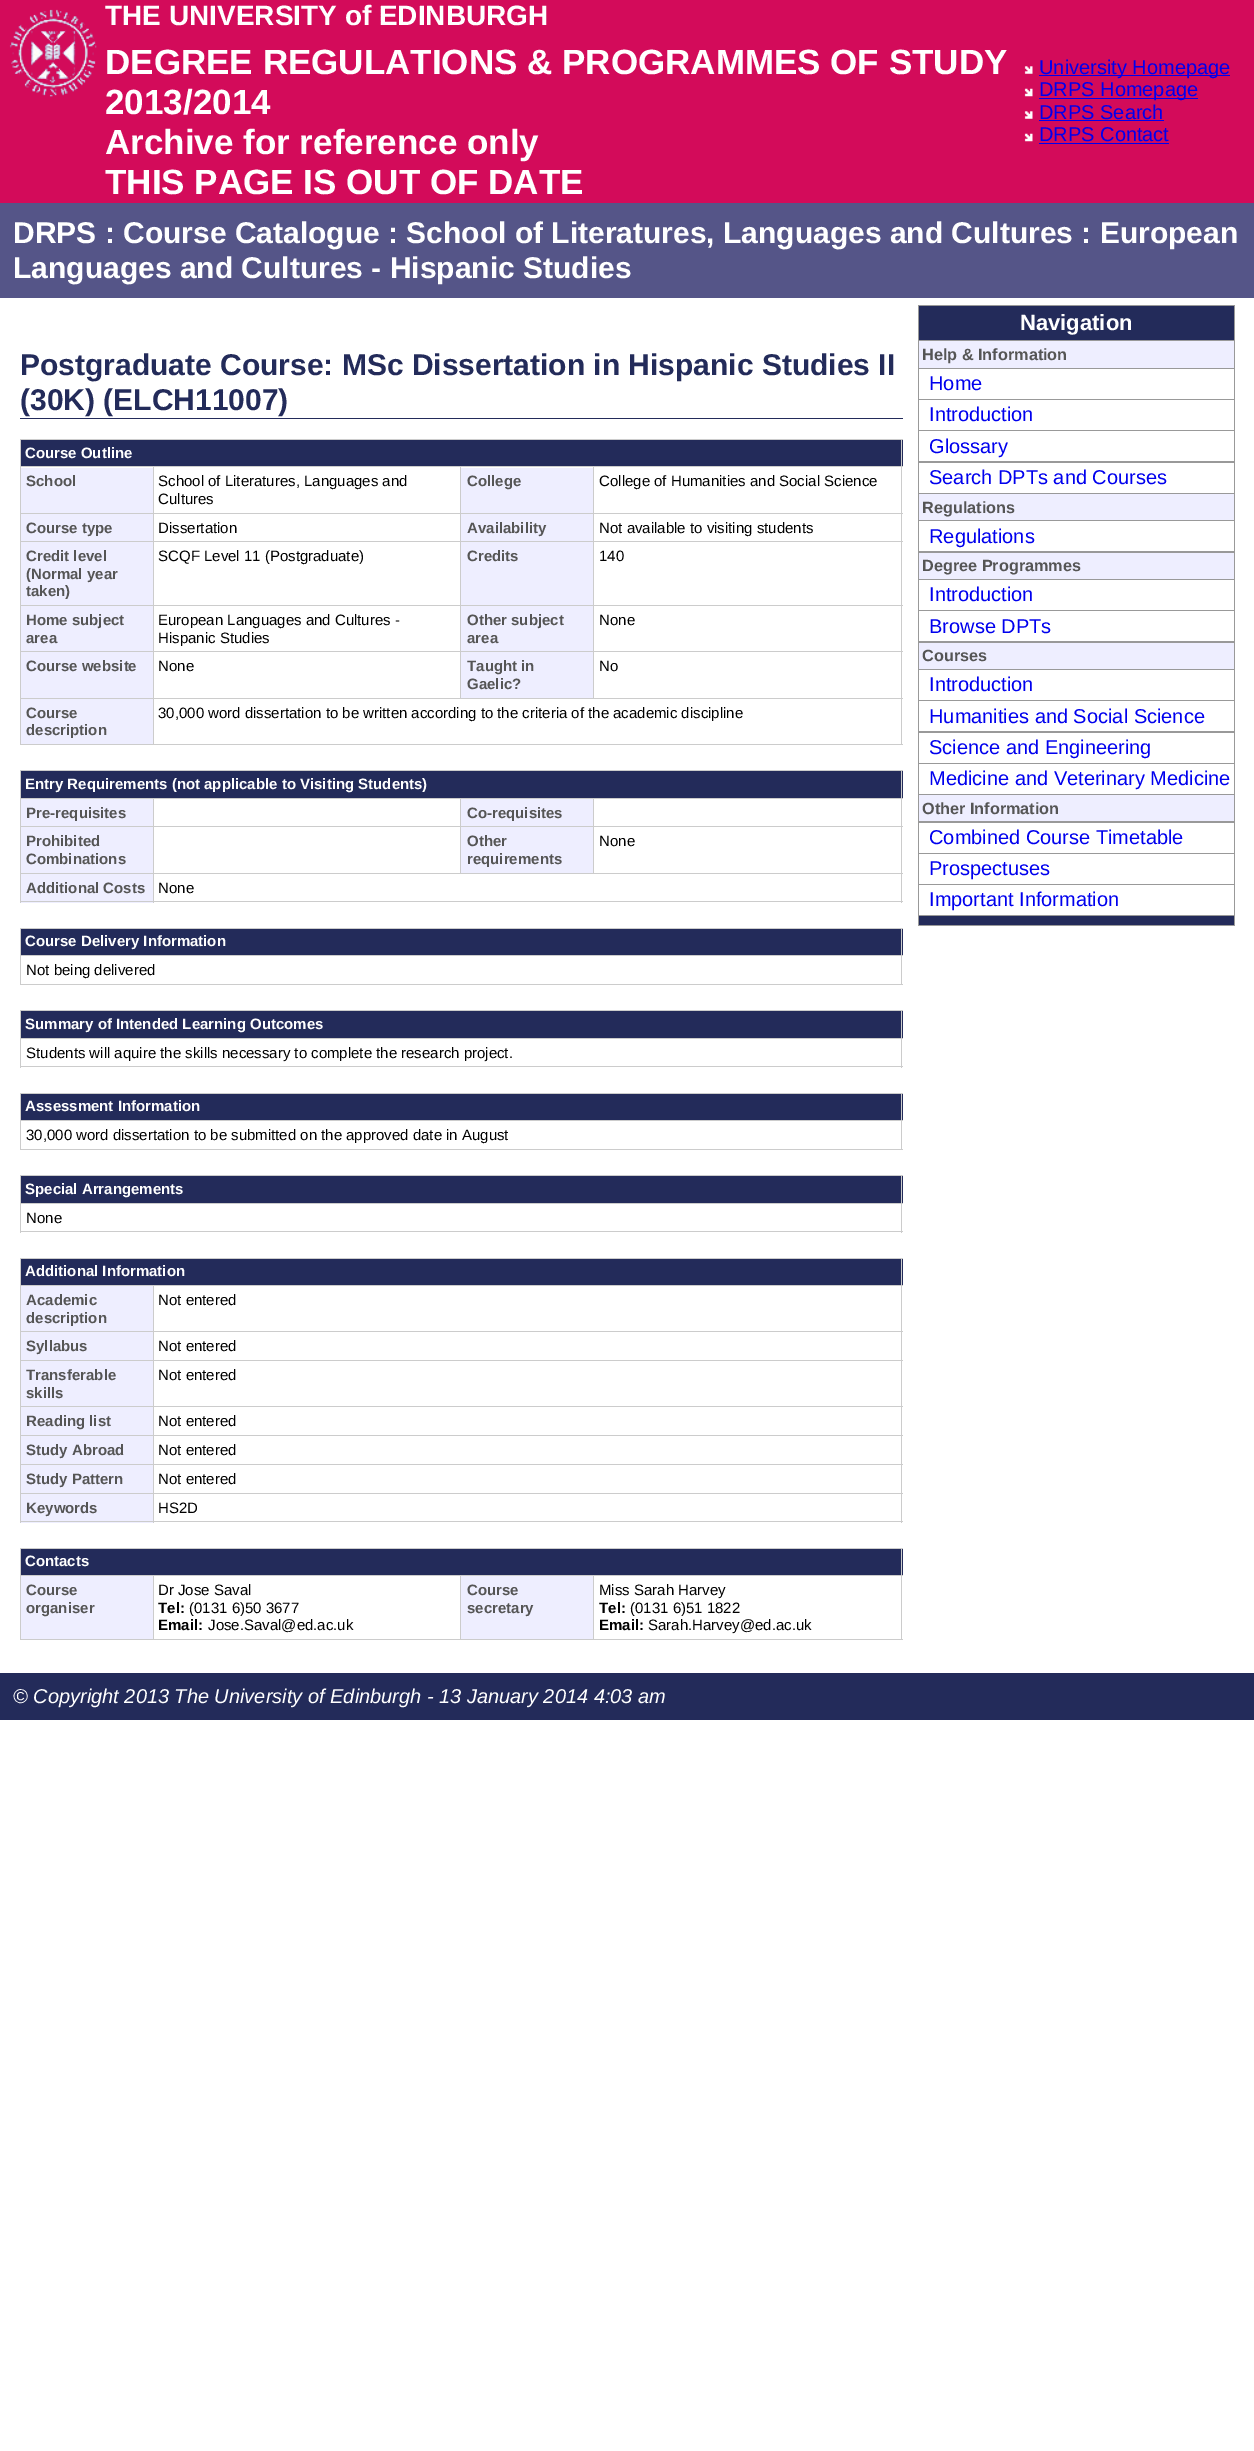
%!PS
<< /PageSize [1254 2451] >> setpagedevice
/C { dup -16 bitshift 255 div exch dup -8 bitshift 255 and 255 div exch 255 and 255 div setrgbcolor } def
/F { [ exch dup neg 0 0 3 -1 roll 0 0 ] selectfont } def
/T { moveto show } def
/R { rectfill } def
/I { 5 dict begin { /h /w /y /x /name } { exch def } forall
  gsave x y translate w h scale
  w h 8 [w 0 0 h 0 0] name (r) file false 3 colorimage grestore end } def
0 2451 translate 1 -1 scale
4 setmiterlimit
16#FFFFFF C
0 0 1254 2451 R
16#D30B5A C
0 0 1254 203 R
(1.rgb) 9 9 88 88 I
/LiberationSans-Bold 28 F
16#FFFFFF C
(THE UNIVERSITY of EDINBURGH) 105 25 T
/LiberationSans-Bold 35 F
(DEGREE REGULATIONS & PROGRAMMES OF STUDY) 105 74 T
(2013/2014) 105 114 T
(Archive for reference only) 105 154 T
(THIS PAGE IS OUT OF DATE) 105 194 T
(2.rgb) 1024 66 9 8 I
16#0000EE C
1039 75 191 1 R
/LiberationSans-Regular 20 F
(University Homepage) 1039 74 T
(3.rgb) 1024 88 9 9 I
1039 98 159 1 R
(DRPS Homepage) 1039 96 T
(2.rgb) 1024 111 9 8 I
(DRPS Search) 1039 119 T
1039 120 125 1 R
(3.rgb) 1024 133 9 9 I
(DRPS Contact) 1039 141 T
1039 143 130 1 R
16#555588 C
0 203 1254 95 R
/LiberationSans-Bold 30 F
16#FFFFFF C
(DRPS : Course Catalogue : School of Literatures, Languages and Cultures : European) 13 243 T
(Languages and Cultures - Hispanic Studies) 13 278 T
16#232B5A C
20 418 883 1 R
(Postgraduate Course: MSc Dissertation in Hispanic Studies II) 20 375 T
(\(30K\) \(ELCH11007\)) 20 410 T
16#CCCCCC C
20 439 883 1 R
16#232B5A C
21 440 882 26 R
16#CCCCCC C
901 439 1 306 R
20 744 883 1 R
20 439 1 306 R
/LiberationSans-Bold 15 F
16#FFFFFF C
(Course Outline) 25 458 T
16#EEEEFF C
21 468 132 45 R
16#CCCCCC C
593 466 310 1 R
593 513 310 1 R
16#EEEEFF C
461 514 132 91 R
16#CCCCCC C
593 541 310 1 R
593 605 310 1 R
16#EEEEFF C
461 606 132 92 R
16#CCCCCC C
593 651 310 1 R
153 698 750 1 R
593 651 1 48 R
460 651 134 1 R
593 605 1 48 R
460 605 134 1 R
593 541 1 65 R
460 541 134 1 R
593 513 1 30 R
460 513 134 1 R
593 466 1 48 R
460 466 134 1 R
460 651 1 48 R
153 651 308 1 R
460 605 1 48 R
153 605 308 1 R
460 541 1 65 R
153 541 308 1 R
460 513 1 30 R
153 513 308 1 R
460 466 1 48 R
153 466 308 1 R
16#EEEEFF C
21 514 132 91 R
21 606 132 92 R
16#CCCCCC C
153 698 1 47 R
20 698 134 1 R
153 651 1 48 R
20 651 134 1 R
153 605 1 48 R
20 605 134 1 R
153 541 1 65 R
20 541 134 1 R
153 513 1 30 R
20 513 134 1 R
153 466 1 48 R
20 466 134 1 R
16#555555 C
(School) 26 486 T
/LiberationSans-Regular 15 F
16#000000 C
(School of Literatures, Languages and) 158 486 T
(Cultures) 158 504 T
16#EEEEFF C
461 468 132 45 R
/LiberationSans-Bold 15 F
16#555555 C
(College) 467 486 T
/LiberationSans-Regular 15 F
16#000000 C
(College of Humanities and Social Science) 599 486 T
/LiberationSans-Bold 15 F
16#555555 C
(Course type) 26 533 T
/LiberationSans-Regular 15 F
16#000000 C
(Dissertation) 158 533 T
/LiberationSans-Bold 15 F
16#555555 C
(Availability) 467 533 T
/LiberationSans-Regular 15 F
16#000000 C
(Not available to visiting students) 599 533 T
/LiberationSans-Bold 15 F
16#555555 C
(Credit level) 26 561 T
(\(Normal year) 26 579 T
(taken\)) 26 596 T
/LiberationSans-Regular 15 F
16#000000 C
(SCQF Level 11 \(Postgraduate\)) 158 561 T
/LiberationSans-Bold 15 F
16#555555 C
(Credits) 467 561 T
/LiberationSans-Regular 15 F
16#000000 C
(140) 599 561 T
/LiberationSans-Bold 15 F
16#555555 C
(Home subject) 26 625 T
(area) 26 643 T
/LiberationSans-Regular 15 F
16#000000 C
(European Languages and Cultures -) 158 625 T
(Hispanic Studies) 158 643 T
/LiberationSans-Bold 15 F
16#555555 C
(Other subject) 467 625 T
(area) 467 643 T
/LiberationSans-Regular 15 F
16#000000 C
(None) 599 625 T
/LiberationSans-Bold 15 F
16#555555 C
(Course website) 26 671 T
/LiberationSans-Regular 15 F
16#000000 C
(None) 158 671 T
/LiberationSans-Bold 15 F
16#555555 C
(Taught in) 467 671 T
(Gaelic?) 467 689 T
/LiberationSans-Regular 15 F
16#000000 C
(No) 599 671 T
16#EEEEFF C
21 699 132 45 R
/LiberationSans-Bold 15 F
16#555555 C
(Course) 26 718 T
(description) 26 735 T
/LiberationSans-Regular 15 F
16#000000 C
(30,000 word dissertation to be written according to the criteria of the academic discipline) 158 718 T
16#CCCCCC C
20 770 883 1 R
16#232B5A C
21 771 882 27 R
16#CCCCCC C
901 770 1 133 R
16#EEEEFF C
21 874 132 29 R
16#CCCCCC C
20 901 883 1 R
20 770 1 133 R
/LiberationSans-Bold 15 F
16#FFFFFF C
(Entry Requirements \(not applicable to Visiting Students\)) 25 789 T
16#EEEEFF C
21 799 132 74 R
16#CCCCCC C
593 798 310 1 R
16#EEEEFF C
461 799 132 74 R
16#CCCCCC C
593 826 310 1 R
153 873 750 1 R
593 826 1 48 R
460 826 134 1 R
593 798 1 30 R
460 798 134 1 R
460 826 1 48 R
153 826 308 1 R
460 798 1 30 R
153 798 308 1 R
153 873 1 30 R
20 873 134 1 R
153 826 1 48 R
20 826 134 1 R
153 798 1 30 R
20 798 134 1 R
16#555555 C
(Pre-requisites) 26 818 T
(Co-requisites) 467 818 T
(Prohibited) 26 846 T
(Combinations) 26 864 T
(Other) 467 846 T
(requirements) 467 864 T
/LiberationSans-Regular 15 F
16#000000 C
(None) 599 846 T
/LiberationSans-Bold 15 F
16#555555 C
(Additional Costs) 26 893 T
/LiberationSans-Regular 15 F
16#000000 C
(None) 158 893 T
16#CCCCCC C
20 928 883 1 R
16#232B5A C
21 929 882 26 R
16#CCCCCC C
901 928 1 57 R
20 984 883 1 R
20 928 1 57 R
/LiberationSans-Bold 15 F
16#FFFFFF C
(Course Delivery Information) 25 946 T
16#CCCCCC C
20 955 883 1 R
/LiberationSans-Regular 15 F
16#000000 C
(Not being delivered) 26 975 T
16#CCCCCC C
20 1010 883 1 R
16#232B5A C
21 1011 882 27 R
16#CCCCCC C
901 1010 1 58 R
20 1066 883 1 R
20 1010 1 58 R
/LiberationSans-Bold 15 F
16#FFFFFF C
(Summary of Intended Learning Outcomes) 25 1029 T
16#CCCCCC C
20 1038 883 1 R
/LiberationSans-Regular 15 F
16#000000 C
(Students will aquire the skills necessary to complete the research project.) 26 1058 T
16#CCCCCC C
20 1093 883 1 R
16#232B5A C
21 1094 882 26 R
16#CCCCCC C
901 1093 1 57 R
20 1149 883 1 R
20 1093 1 57 R
/LiberationSans-Bold 15 F
16#FFFFFF C
(Assessment Information) 25 1111 T
16#CCCCCC C
20 1120 883 1 R
/LiberationSans-Regular 15 F
16#000000 C
(30,000 word dissertation to be submitted on the approved date in August) 26 1140 T
16#CCCCCC C
20 1175 883 1 R
16#232B5A C
21 1176 882 27 R
16#CCCCCC C
901 1175 1 58 R
20 1231 883 1 R
20 1175 1 58 R
/LiberationSans-Bold 15 F
16#FFFFFF C
(Special Arrangements) 25 1194 T
16#CCCCCC C
20 1203 883 1 R
/LiberationSans-Regular 15 F
16#000000 C
(None) 26 1223 T
16#CCCCCC C
20 1258 883 1 R
16#232B5A C
21 1259 882 26 R
16#CCCCCC C
901 1258 1 265 R
16#EEEEFF C
21 1494 132 29 R
16#CCCCCC C
20 1521 883 1 R
20 1258 1 265 R
/LiberationSans-Bold 15 F
16#FFFFFF C
(Additional Information) 25 1276 T
16#EEEEFF C
21 1286 132 74 R
16#CCCCCC C
153 1285 750 1 R
153 1331 750 1 R
153 1360 750 1 R
16#EEEEFF C
21 1361 132 74 R
16#CCCCCC C
153 1406 750 1 R
153 1435 750 1 R
153 1464 750 1 R
153 1493 750 1 R
153 1493 1 30 R
20 1493 134 1 R
153 1464 1 30 R
20 1464 134 1 R
153 1435 1 30 R
20 1435 134 1 R
153 1406 1 30 R
20 1406 134 1 R
153 1360 1 48 R
20 1360 134 1 R
153 1331 1 30 R
20 1331 134 1 R
153 1285 1 48 R
20 1285 134 1 R
16#555555 C
(Academic) 26 1305 T
(description) 26 1323 T
/LiberationSans-Regular 15 F
16#000000 C
(Not entered) 158 1305 T
/LiberationSans-Bold 15 F
16#555555 C
(Syllabus) 26 1351 T
/LiberationSans-Regular 15 F
16#000000 C
(Not entered) 158 1351 T
/LiberationSans-Bold 15 F
16#555555 C
(Transferable) 26 1380 T
(skills) 26 1398 T
/LiberationSans-Regular 15 F
16#000000 C
(Not entered) 158 1380 T
/LiberationSans-Bold 15 F
16#555555 C
(Reading list) 26 1426 T
/LiberationSans-Regular 15 F
16#000000 C
(Not entered) 158 1426 T
16#EEEEFF C
21 1436 132 28 R
/LiberationSans-Bold 15 F
16#555555 C
(Study Abroad) 26 1455 T
/LiberationSans-Regular 15 F
16#000000 C
(Not entered) 158 1455 T
16#EEEEFF C
21 1465 132 28 R
/LiberationSans-Bold 15 F
16#555555 C
(Study Pattern) 26 1484 T
/LiberationSans-Regular 15 F
16#000000 C
(Not entered) 158 1484 T
/LiberationSans-Bold 15 F
16#555555 C
(Keywords) 26 1513 T
/LiberationSans-Regular 15 F
16#000000 C
(HS2D) 158 1513 T
16#CCCCCC C
20 1548 883 1 R
16#232B5A C
21 1549 882 26 R
16#CCCCCC C
901 1548 1 92 R
20 1639 883 1 R
20 1548 1 92 R
/LiberationSans-Bold 15 F
16#FFFFFF C
(Contacts) 25 1566 T
16#EEEEFF C
21 1576 132 63 R
16#CCCCCC C
593 1575 310 1 R
593 1575 1 65 R
460 1575 134 1 R
460 1575 1 65 R
153 1575 308 1 R
153 1575 1 65 R
20 1575 134 1 R
16#555555 C
(Course) 26 1595 T
(organiser) 26 1613 T
/LiberationSans-Regular 15 F
16#000000 C
(Dr Jose Saval) 158 1595 T
/LiberationSans-Bold 15 F
(Tel:) 158 1613 T
/LiberationSans-Regular 15 F
(\(0131 6\)50 3677) 189 1613 T
/LiberationSans-Bold 15 F
(Email:) 158 1630 T
/LiberationSans-Regular 15 F
(Jose.Saval@ed.ac.uk) 208 1630 T
16#EEEEFF C
461 1576 132 63 R
/LiberationSans-Bold 15 F
16#555555 C
(Course) 467 1595 T
(secretary) 467 1613 T
/LiberationSans-Regular 15 F
16#000000 C
(Miss Sarah Harvey) 599 1595 T
/LiberationSans-Bold 15 F
(Tel:) 599 1613 T
/LiberationSans-Regular 15 F
(\(0131 6\)51 1822) 630 1613 T
/LiberationSans-Bold 15 F
(Email:) 599 1630 T
/LiberationSans-Regular 15 F
(Sarah.Harvey@ed.ac.uk) 648 1630 T
16#999999 C
918 305 317 621 R
16#232B5A C
919 306 315 34 R
/LiberationSans-Bold 22 F
16#FFFFFF C
(Navigation) 1020 330 T
16#EEEEFF C
919 341 315 27 R
/LiberationSans-Bold 16.25 F
16#555555 C
(Help & Information) 922 360 T
16#FFFFFF C
919 369 315 30 R
/LiberationSans-Regular 20 F
16#0000EE C
(Home) 929 390 T
16#FFFFFF C
919 400 315 30 R
16#0000EE C
(Introduction) 929 421 T
16#FFFFFF C
919 431 315 30 R
16#0000EE C
(Glossary) 929 453 T
16#FFFFFF C
919 463 315 30 R
16#0000EE C
(Search DPTs and Courses) 929 484 T
16#EEEEFF C
919 494 315 26 R
/LiberationSans-Bold 16.25 F
16#555555 C
(Regulations) 922 513 T
16#FFFFFF C
919 521 315 30 R
/LiberationSans-Regular 20 F
16#0000EE C
(Regulations) 929 543 T
16#EEEEFF C
919 553 315 26 R
/LiberationSans-Bold 16.25 F
16#555555 C
(Degree Programmes) 922 571 T
16#FFFFFF C
919 580 315 30 R
/LiberationSans-Regular 20 F
16#0000EE C
(Introduction) 929 601 T
16#FFFFFF C
919 611 315 30 R
16#0000EE C
(Browse DPTs) 929 633 T
16#EEEEFF C
919 643 315 26 R
/LiberationSans-Bold 16.25 F
16#555555 C
(Courses) 922 661 T
16#FFFFFF C
919 670 315 30 R
/LiberationSans-Regular 20 F
16#0000EE C
(Introduction) 929 691 T
16#FFFFFF C
919 701 315 30 R
16#0000EE C
(Humanities and Social Science) 929 723 T
16#FFFFFF C
919 733 315 30 R
16#0000EE C
(Science and Engineering) 929 754 T
16#FFFFFF C
919 764 315 30 R
16#0000EE C
(Medicine and Veterinary Medicine) 929 785 T
16#EEEEFF C
919 795 315 26 R
/LiberationSans-Bold 16.25 F
16#555555 C
(Other Information) 922 814 T
16#FFFFFF C
919 823 315 30 R
/LiberationSans-Regular 20 F
16#0000EE C
(Combined Course Timetable) 929 844 T
16#FFFFFF C
919 854 315 30 R
16#0000EE C
(Prospectuses) 929 875 T
16#FFFFFF C
919 885 315 30 R
16#0000EE C
(Important Information) 929 906 T
16#232B5A C
919 916 315 9 R
0 1673 1254 47 R
/LiberationSans-Italic 20 F
16#FFFFFF C
(© Copyright 2013 The University of Edinburgh - 13 January 2014 4:03 am) 13 1703 T
showpage
